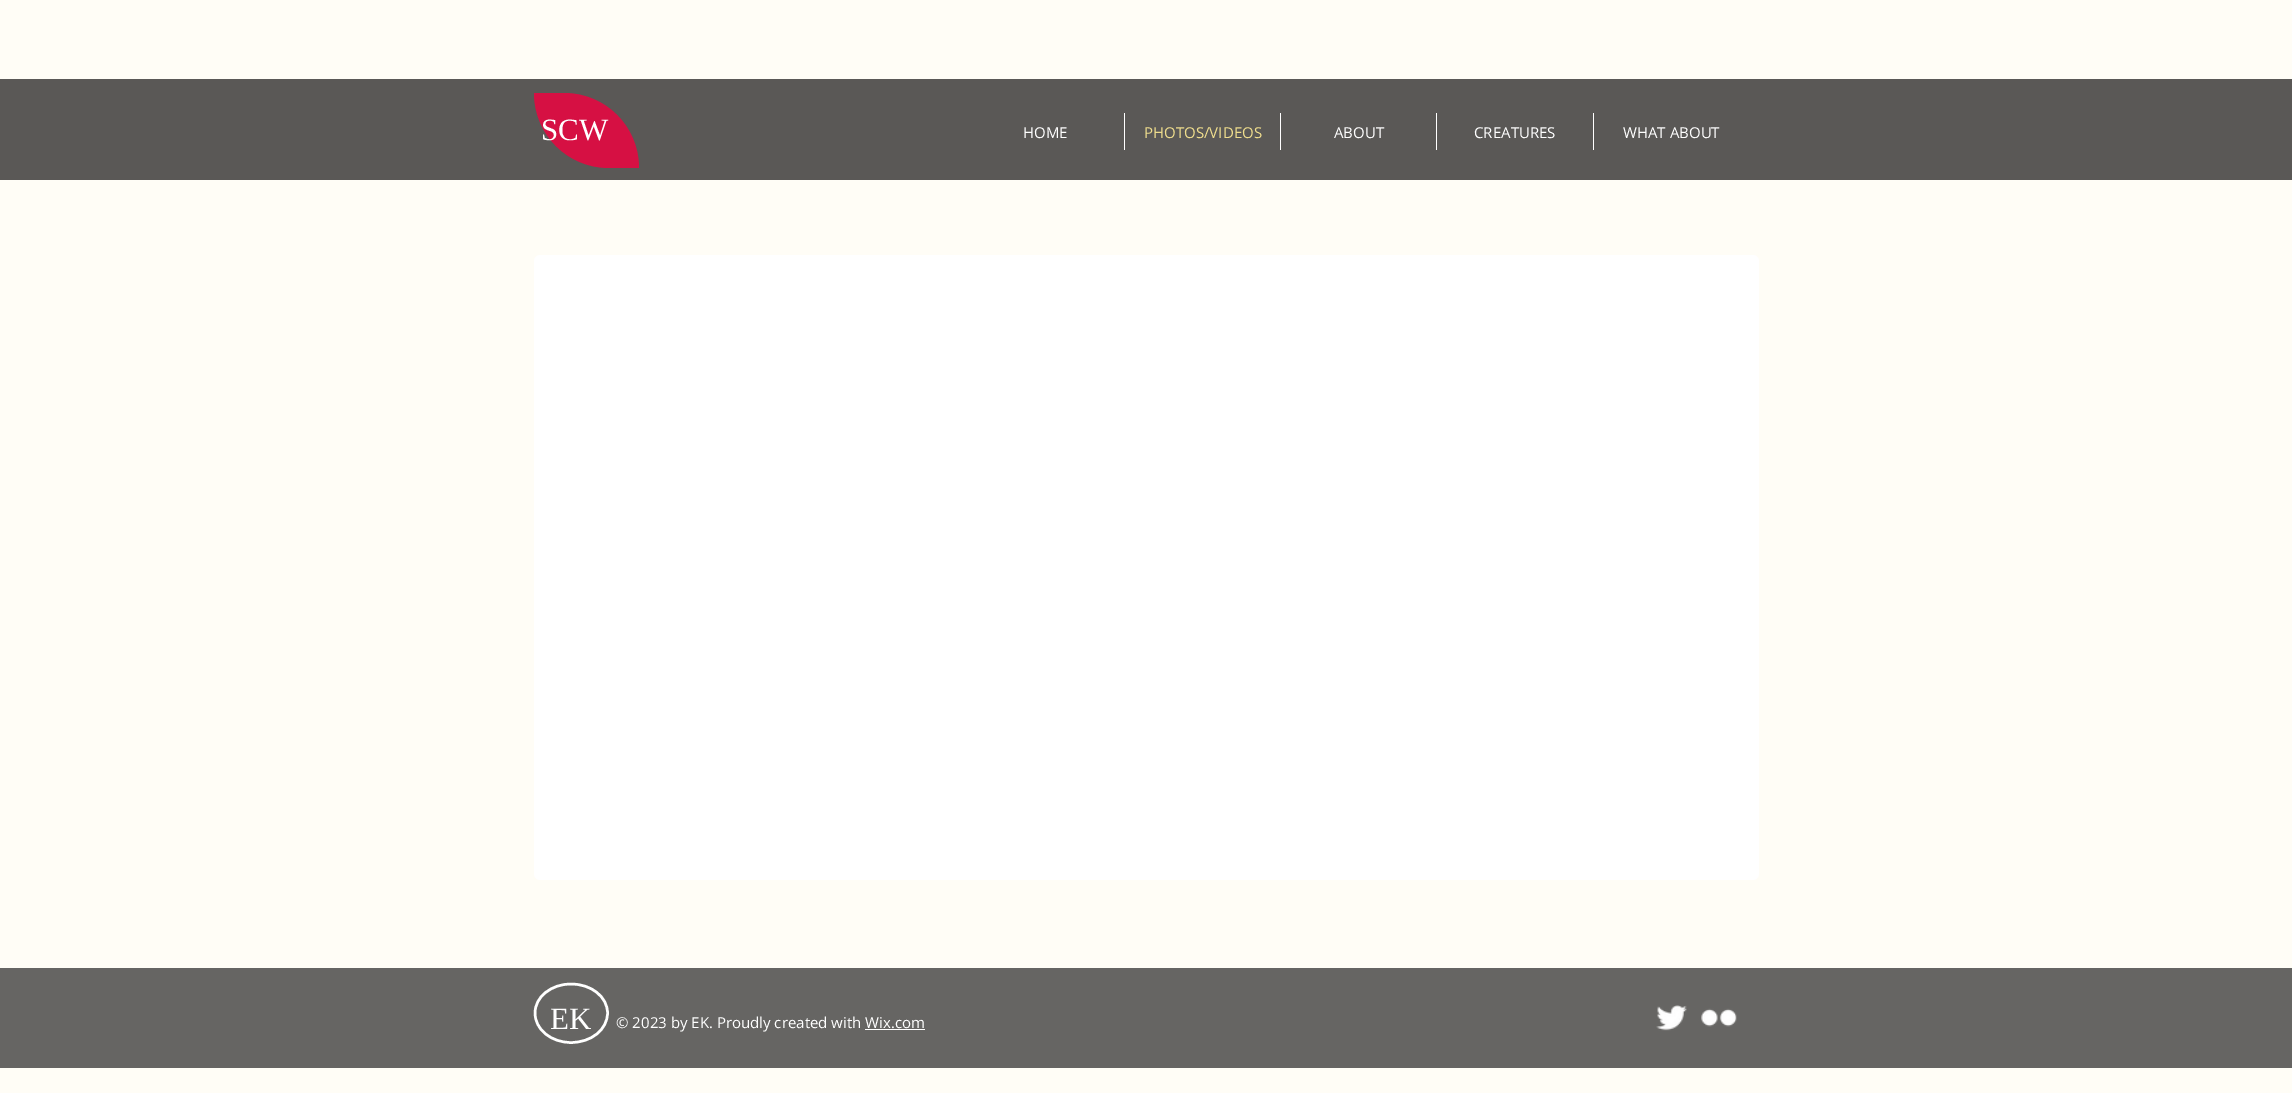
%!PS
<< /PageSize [2292 1093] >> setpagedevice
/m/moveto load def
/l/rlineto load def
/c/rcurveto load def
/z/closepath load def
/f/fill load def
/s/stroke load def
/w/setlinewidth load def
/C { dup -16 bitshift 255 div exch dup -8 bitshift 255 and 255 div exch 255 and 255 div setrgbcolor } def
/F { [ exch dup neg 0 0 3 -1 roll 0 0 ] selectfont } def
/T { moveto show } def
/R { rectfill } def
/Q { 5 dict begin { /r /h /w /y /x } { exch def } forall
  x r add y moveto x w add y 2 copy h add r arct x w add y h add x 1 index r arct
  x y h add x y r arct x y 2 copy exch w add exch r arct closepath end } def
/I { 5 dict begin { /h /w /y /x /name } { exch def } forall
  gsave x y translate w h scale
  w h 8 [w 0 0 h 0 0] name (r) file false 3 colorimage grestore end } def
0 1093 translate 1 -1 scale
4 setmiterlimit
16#FFFDF6 C
0 0 2292 1093 R
16#5A5856 C
0 79 2292 101 R
16#D61043 C
534 93 m 30 0 l 41.5 0 75 33.5 75 75 c -30 0 l -41.5 0 -75 -33.5 -75 -75 c z f
/LiberationSerif-Regular 31 F
16#FFFFFF C
(SCW) 541 140 T
/OpenSans-Regular 15 F
(HOME) 1023 138 T
1124 113 1 37 R
16#EFDD8D C
(PHOTOS/VIDEOS) 1144 138 T
16#FFFFFF C
1280 113 1 37 R
(ABOUT) 1334 138 T
1436 113 1 37 R
(CREATURES) 1474 138 T
1593 113 1 37 R
(WHAT ABOUT) 1623 138 T
534 255 1225 625 6 Q f
16#666563 C
0 968 2292 100 R
16#FFFFFF C
2.5 w
571 984 m 20.5 0 36.5 13 36.5 29 c 0 16.5 -16 29.5 -36.5 29.5 c -20 0 -36 -13 -36 -29.5 c 0 -16 16 -29 36 -29 c z s
/LiberationSerif-Regular 31 F
(EK) 550 1029 T
/OpenSans-Regular 15 F
(© 2023 by EK. Proudly created with Wix.com) 616 1028 T
865 1029 60 1 R
(1.rgb) 1656 1005 31 26 I
(2.rgb) 1701 1008 36 19 I
showpage
